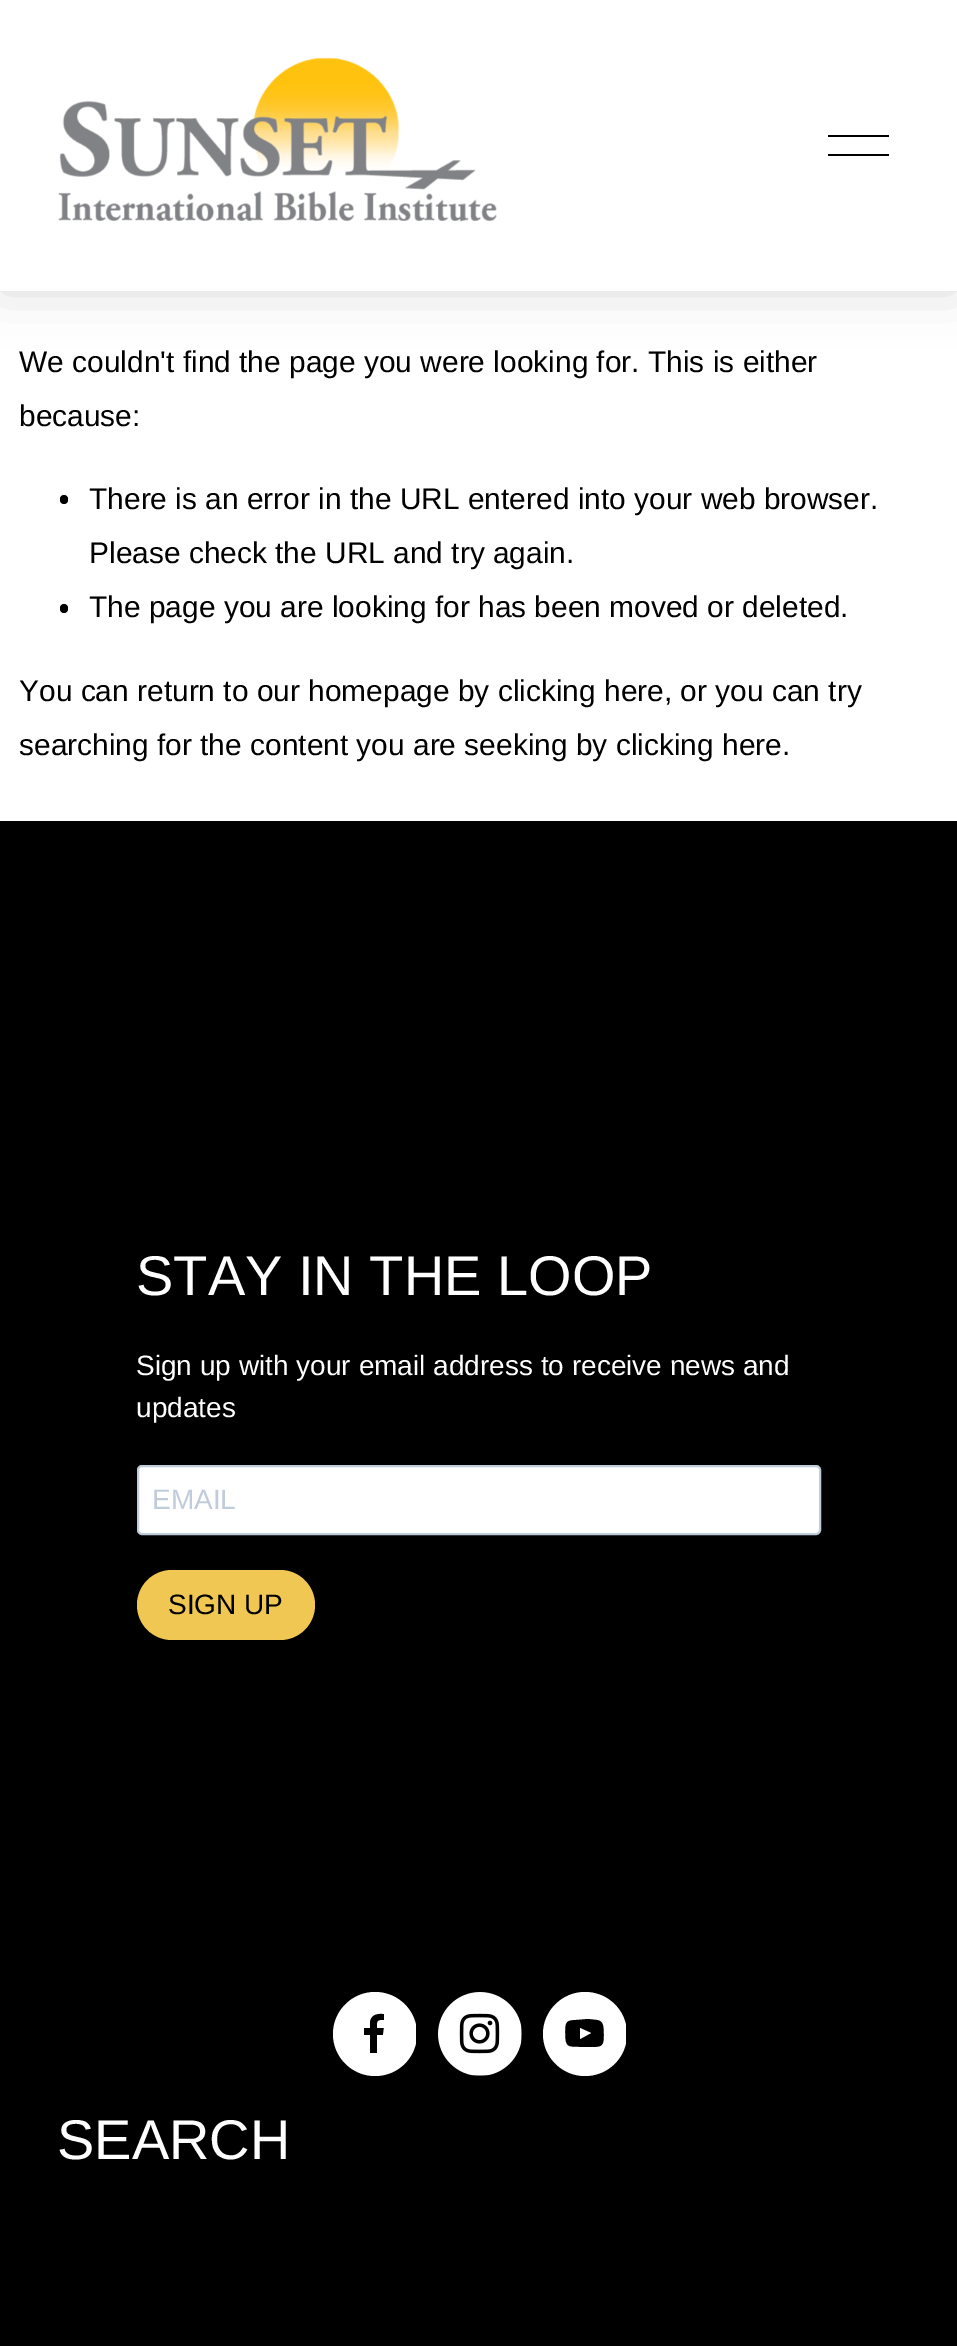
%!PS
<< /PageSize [957 2346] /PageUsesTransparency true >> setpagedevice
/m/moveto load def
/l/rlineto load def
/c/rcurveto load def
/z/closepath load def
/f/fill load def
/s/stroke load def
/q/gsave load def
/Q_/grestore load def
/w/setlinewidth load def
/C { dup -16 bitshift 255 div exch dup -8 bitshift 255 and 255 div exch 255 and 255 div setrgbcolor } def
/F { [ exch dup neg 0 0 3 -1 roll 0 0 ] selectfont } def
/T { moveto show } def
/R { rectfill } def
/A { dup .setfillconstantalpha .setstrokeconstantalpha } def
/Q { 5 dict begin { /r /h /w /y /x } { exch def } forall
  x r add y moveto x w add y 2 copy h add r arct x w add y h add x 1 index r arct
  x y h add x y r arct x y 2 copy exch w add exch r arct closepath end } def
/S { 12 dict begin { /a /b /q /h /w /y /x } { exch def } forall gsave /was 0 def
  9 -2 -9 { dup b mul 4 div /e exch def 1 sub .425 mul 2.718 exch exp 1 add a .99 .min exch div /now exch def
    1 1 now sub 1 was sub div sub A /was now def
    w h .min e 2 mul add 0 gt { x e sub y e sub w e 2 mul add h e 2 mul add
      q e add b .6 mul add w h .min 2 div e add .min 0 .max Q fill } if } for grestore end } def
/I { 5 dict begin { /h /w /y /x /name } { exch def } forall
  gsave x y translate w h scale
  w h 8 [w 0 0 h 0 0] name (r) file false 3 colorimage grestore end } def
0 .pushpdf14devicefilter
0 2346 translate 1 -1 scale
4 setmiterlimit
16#FFFFFF C
0 0 957 2346 R
16#D9D9D9 C
0 0 957 291 0 26 1 S
16#FFFFFF C
0 0 957 291 R
(1.rgb) 58 57 439 165 I
16#000000 C
828 135 61 2 R
828 154 61 2 R
/LiberationSans-Regular 29.9 F
(We couldn't find the page you were looking for. This is either) 19 372 T
(because:) 19 426 T
60 495 8 9 4 Q f
(There is an error in the URL entered into your web browser.) 89 509 T
(Please check the URL and try again.) 89 563 T
60 604 8 9 4 Q f
(The page you are looking for has been moved or deleted.) 89 617 T
(You can return to our homepage by clicking here, or you can try) 19 701 T
(searching for the content you are seeking by clicking here.) 19 755 T
0 821 957 1525 R
/LiberationSans-Regular 56 F
16#FFFFFF C
(STAY IN THE LOOP) 136 1295 T
/LiberationSans-Regular 28 F
(Sign up with your email address to receive news and) 136 1375 T
(updates) 136 1417 T
138 1466 682 68 4 Q q f Q_
16#C0CCDA C
2 w
s
(EMAIL) 152 1509 T
16#EFC752 C
137 1570 178 70 35 Q f
16#000000 C
(SIGN UP) 168 1614 T
16#FFFFFF C
375 1992 m -23 0 -42 19 -42 42 c 0 23 19 42 42 42 c 20 0 37 -14 41 -33 c 0 -18 l -4 -19 -21 -33 -41 -33 c z 384 2020 m 0 -6 l -5 -1 -13 0 -14 7 c 0 7 l -6 0 l 0 7 l 6 0 l 0 18 l 7 0 l 0 -18 l 6 0 l 1 -7 l -7 0 l 0 -7 0 -8 7 -8 c z eofill
(2.rgb) 438 1992 84 84 I
585 1992 m -23 0 -42 19 -42 42 c 0 23 19 42 42 42 c 20 0 37 -14 41 -33 c 0 -18 l -4 -19 -21 -33 -41 -33 c z 604 2035 m 0 -15 -2 -15 -14 -16 c -5 0 l -12 1 l -8 0 -8 5 -8 12 c 0 15 2 15 14 15 c 17 0 l 8 0 8 -5 8 -12 c z 580 2039 m 0 -11 l 11 5 l z eofill
/LiberationSans-Regular 56 F
(SEARCH) 57 2159 T
.poppdf14devicefilter showpage
